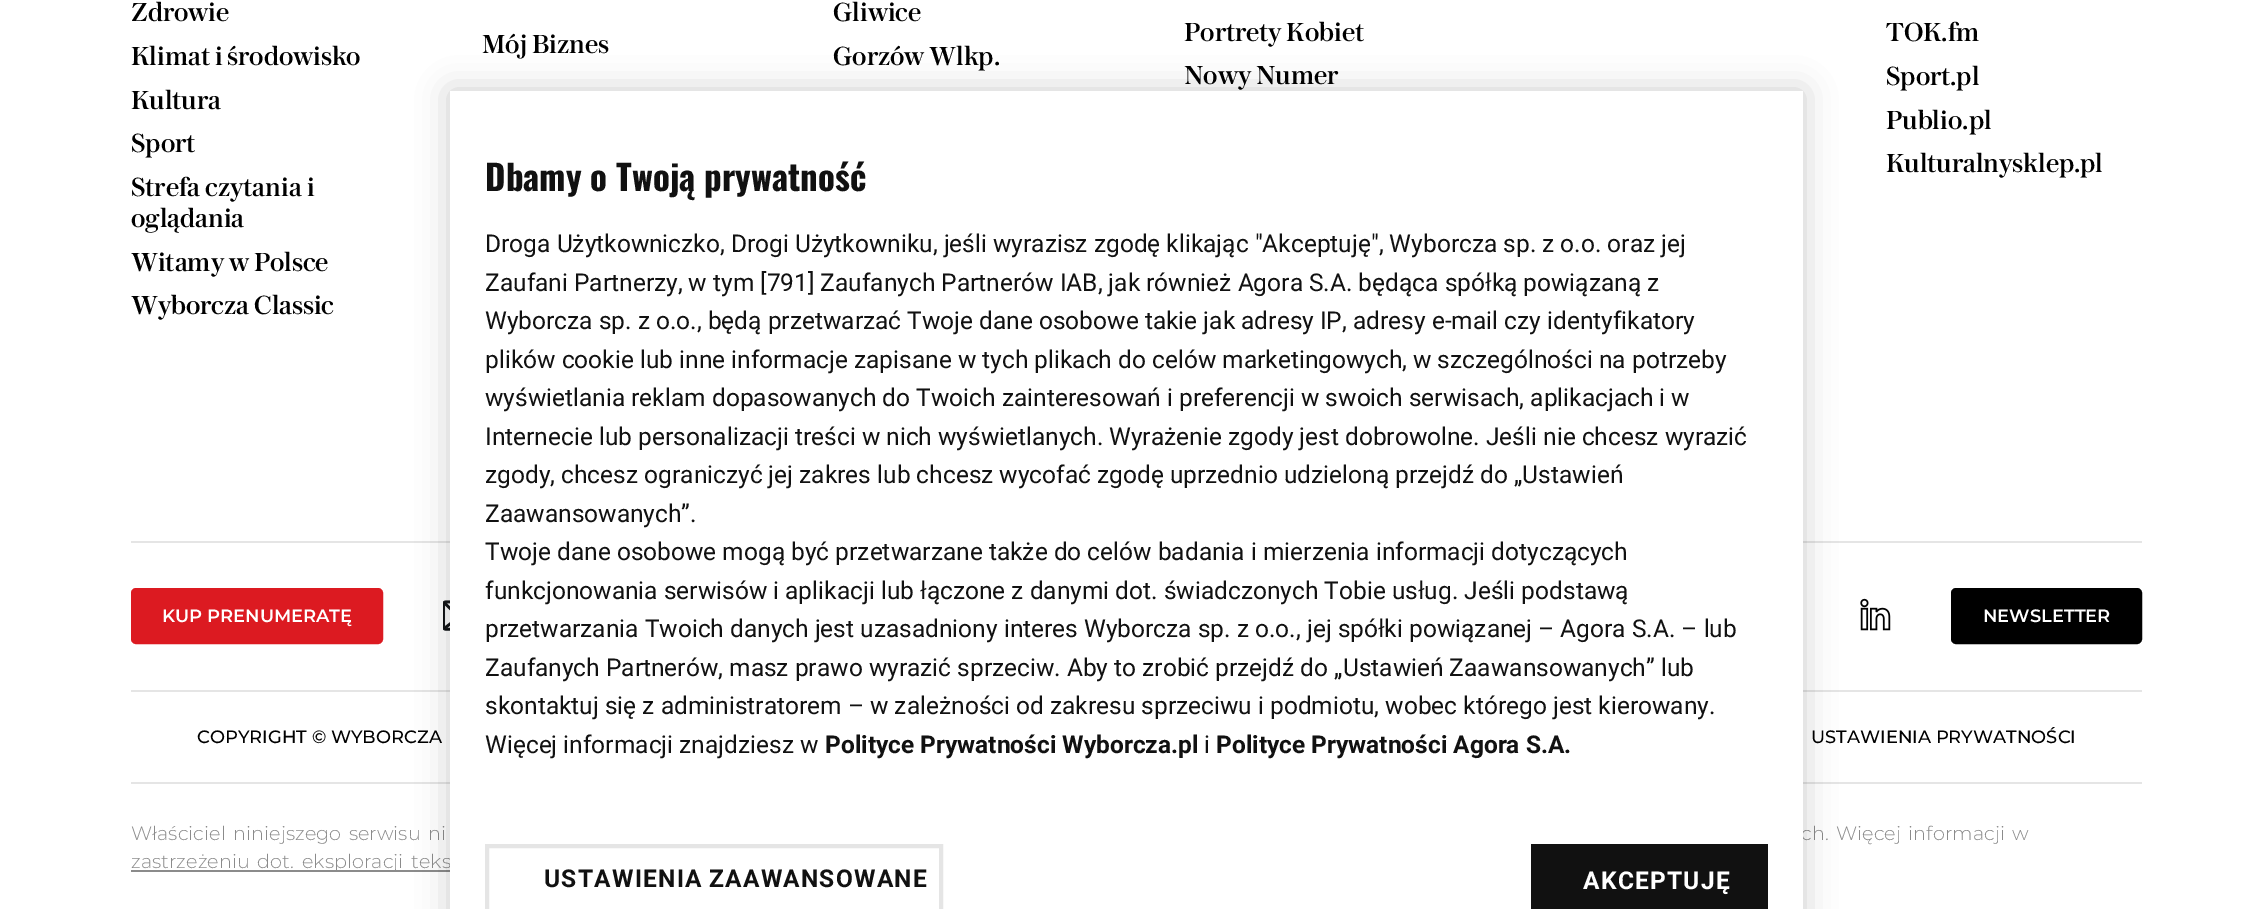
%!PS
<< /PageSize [2251 909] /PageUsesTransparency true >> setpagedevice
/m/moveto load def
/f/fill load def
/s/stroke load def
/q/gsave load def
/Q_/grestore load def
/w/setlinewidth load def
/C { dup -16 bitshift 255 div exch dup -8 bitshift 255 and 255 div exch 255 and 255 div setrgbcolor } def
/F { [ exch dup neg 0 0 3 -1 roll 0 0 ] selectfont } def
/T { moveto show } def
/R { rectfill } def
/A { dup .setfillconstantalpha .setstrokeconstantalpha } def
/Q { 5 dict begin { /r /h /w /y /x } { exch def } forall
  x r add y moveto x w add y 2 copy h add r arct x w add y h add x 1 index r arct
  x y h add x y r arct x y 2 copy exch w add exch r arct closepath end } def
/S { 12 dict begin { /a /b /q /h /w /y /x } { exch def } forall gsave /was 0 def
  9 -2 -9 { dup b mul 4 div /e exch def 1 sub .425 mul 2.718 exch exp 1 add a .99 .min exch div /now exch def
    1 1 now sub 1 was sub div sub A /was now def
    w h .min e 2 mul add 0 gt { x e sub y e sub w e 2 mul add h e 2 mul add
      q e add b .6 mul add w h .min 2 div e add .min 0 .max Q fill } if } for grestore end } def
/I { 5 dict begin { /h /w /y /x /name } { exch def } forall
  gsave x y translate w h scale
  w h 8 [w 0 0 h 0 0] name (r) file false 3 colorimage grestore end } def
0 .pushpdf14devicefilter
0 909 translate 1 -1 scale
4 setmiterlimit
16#FFFFFF C
0 0 2251 909 R
/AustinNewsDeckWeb-Regular 26.9 F
16#000000 C
(Zdrowie) 131 21 T
(Klimat i środowisko) 131 65 T
(Kultura) 131 109 T
(Sport) 131 152 T
(Strefa czytania i) 131 196 T
(oglądania) 131 227 T
(Witamy w Polsce) 131 271 T
(Wyborcza Classic) 131 314 T
(Mój Biznes) 482 53 T
(Gliwice) 833 21 T
(Gorzów Wlkp.) 833 65 T
(Portrety Kobiet) 1184 41 T
(Nowy Numer) 1184 84 T
(TOK.fm) 1886 41 T
(Sport.pl) 1886 85 T
(Publio.pl) 1886 129 T
(Kulturalnysklep.pl) 1886 172 T
16#E5E5E5 C
131 541 2011 2 R
16#DC1A21 C
132 589 250 54 4 Q q f Q_
2 w
s
/Montserrat-SemiBold 17.9 F
16#FFFFFF C
(KUP PRENUMERATĘ) 162 622 T
(1.rgb) 443 600 7 31 I
(2.rgb) 1860 598 31 33 I
16#000000 C
1952 589 189 54 4 Q q f Q_
s
16#FFFFFF C
(NEWSLETTER) 1983 622 T
16#E5E5E5 C
131 690 2011 2 R
/Montserrat-Medium 17.9 F
16#000000 C
(COPYRIGHT © WYBORCZA) 197 743 T
(USTAWIENIA PRYWATNOŚCI) 1811 743 T
16#E5E5E5 C
131 782 2011 2 R
/Montserrat-Light 19.25 F
16#8B8B8B C
131 840 m 2.5 0 32 (Właściciel niniejszego serwisu ni) widthshow
1801 840 m 2.5 0 32 (ch. Więcej informacji w) widthshow
131 870 319 2 R
131 868 m 3 0 32 (zastrzeżeniu dot. eksploracji teks) widthshow
16#000000 C
450 91 1353 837 0 16 .2 S
16#FFFFFF C
450 91 1353 818 R
/Oswald-Bold 35 F
16#111111 C
(Dbamy o Twoją prywatność) 485 191 T
/Roboto-Regular 24.5 F
(Droga Użytkowniczko, Drogi Użytkowniku, jeśli wyrazisz zgodę klikając "Akceptuję", Wyborcza sp. z o.o. oraz jej) 485 252 T
(Zaufani Partnerzy, w tym [791] Zaufanych Partnerów IAB, jak również Agora S.A. będąca spółką powiązaną z) 485 291 T
(Wyborcza sp. z o.o., będą przetwarzać Twoje dane osobowe takie jak adresy IP, adresy e-mail czy identyfikatory) 485 329 T
(plików cookie lub inne informacje zapisane w tych plikach do celów marketingowych, w szczególności na potrzeby) 485 368 T
(wyświetlania reklam dopasowanych do Twoich zainteresowań i preferencji w swoich serwisach, aplikacjach i w) 485 406 T
(Internecie lub personalizacji treści w nich wyświetlanych. Wyrażenie zgody jest dobrowolne. Jeśli nie chcesz wyrazić) 485 445 T
(zgody, chcesz ograniczyć jej zakres lub chcesz wycofać zgodę uprzednio udzieloną przejdź do „Ustawień) 485 483 T
(Zaawansowanych”.) 485 522 T
(Twoje dane osobowe mogą być przetwarzane także do celów badania i mierzenia informacji dotyczących) 485 560 T
(funkcjonowania serwisów i aplikacji lub łączone z danymi dot. świadczonych Tobie usług. Jeśli podstawą) 485 599 T
(przetwarzania Twoich danych jest uzasadniony interes Wyborcza sp. z o.o., jej spółki powiązanej – Agora S.A. – lub) 485 637 T
(Zaufanych Partnerów, masz prawo wyrazić sprzeciw. Aby to zrobić przejdź do „Ustawień Zaawansowanych” lub) 485 676 T
(skontaktuj się z administratorem – w zależności od zakresu sprzeciwu i podmiotu, wobec którego jest kierowany.) 485 714 T
(Więcej informacji znajdziesz w) 485 753 T
/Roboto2-Bold 24.5 F
(Polityce Prywatności Wyborcza.pl) 825 753 T
/Roboto-Regular 24.5 F
(i) 1204 753 T
/Roboto2-Bold 24.5 F
(Polityce Prywatności Agora S.A.) 1216 753 T
16#E5E5E5 C
4 w
487 846 454 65 rectstroke
/Roboto-Bold 24.5 F
16#111111 C
544 887 m -1 0 32 1.25 0 (USTAWIENIA ZAAWANSOWANE) awidthshow
1531 844 237 65 R
16#FFFFFF C
1583 889 m 1.25 0 (AKCEPTUJĘ) ashow
.poppdf14devicefilter showpage
